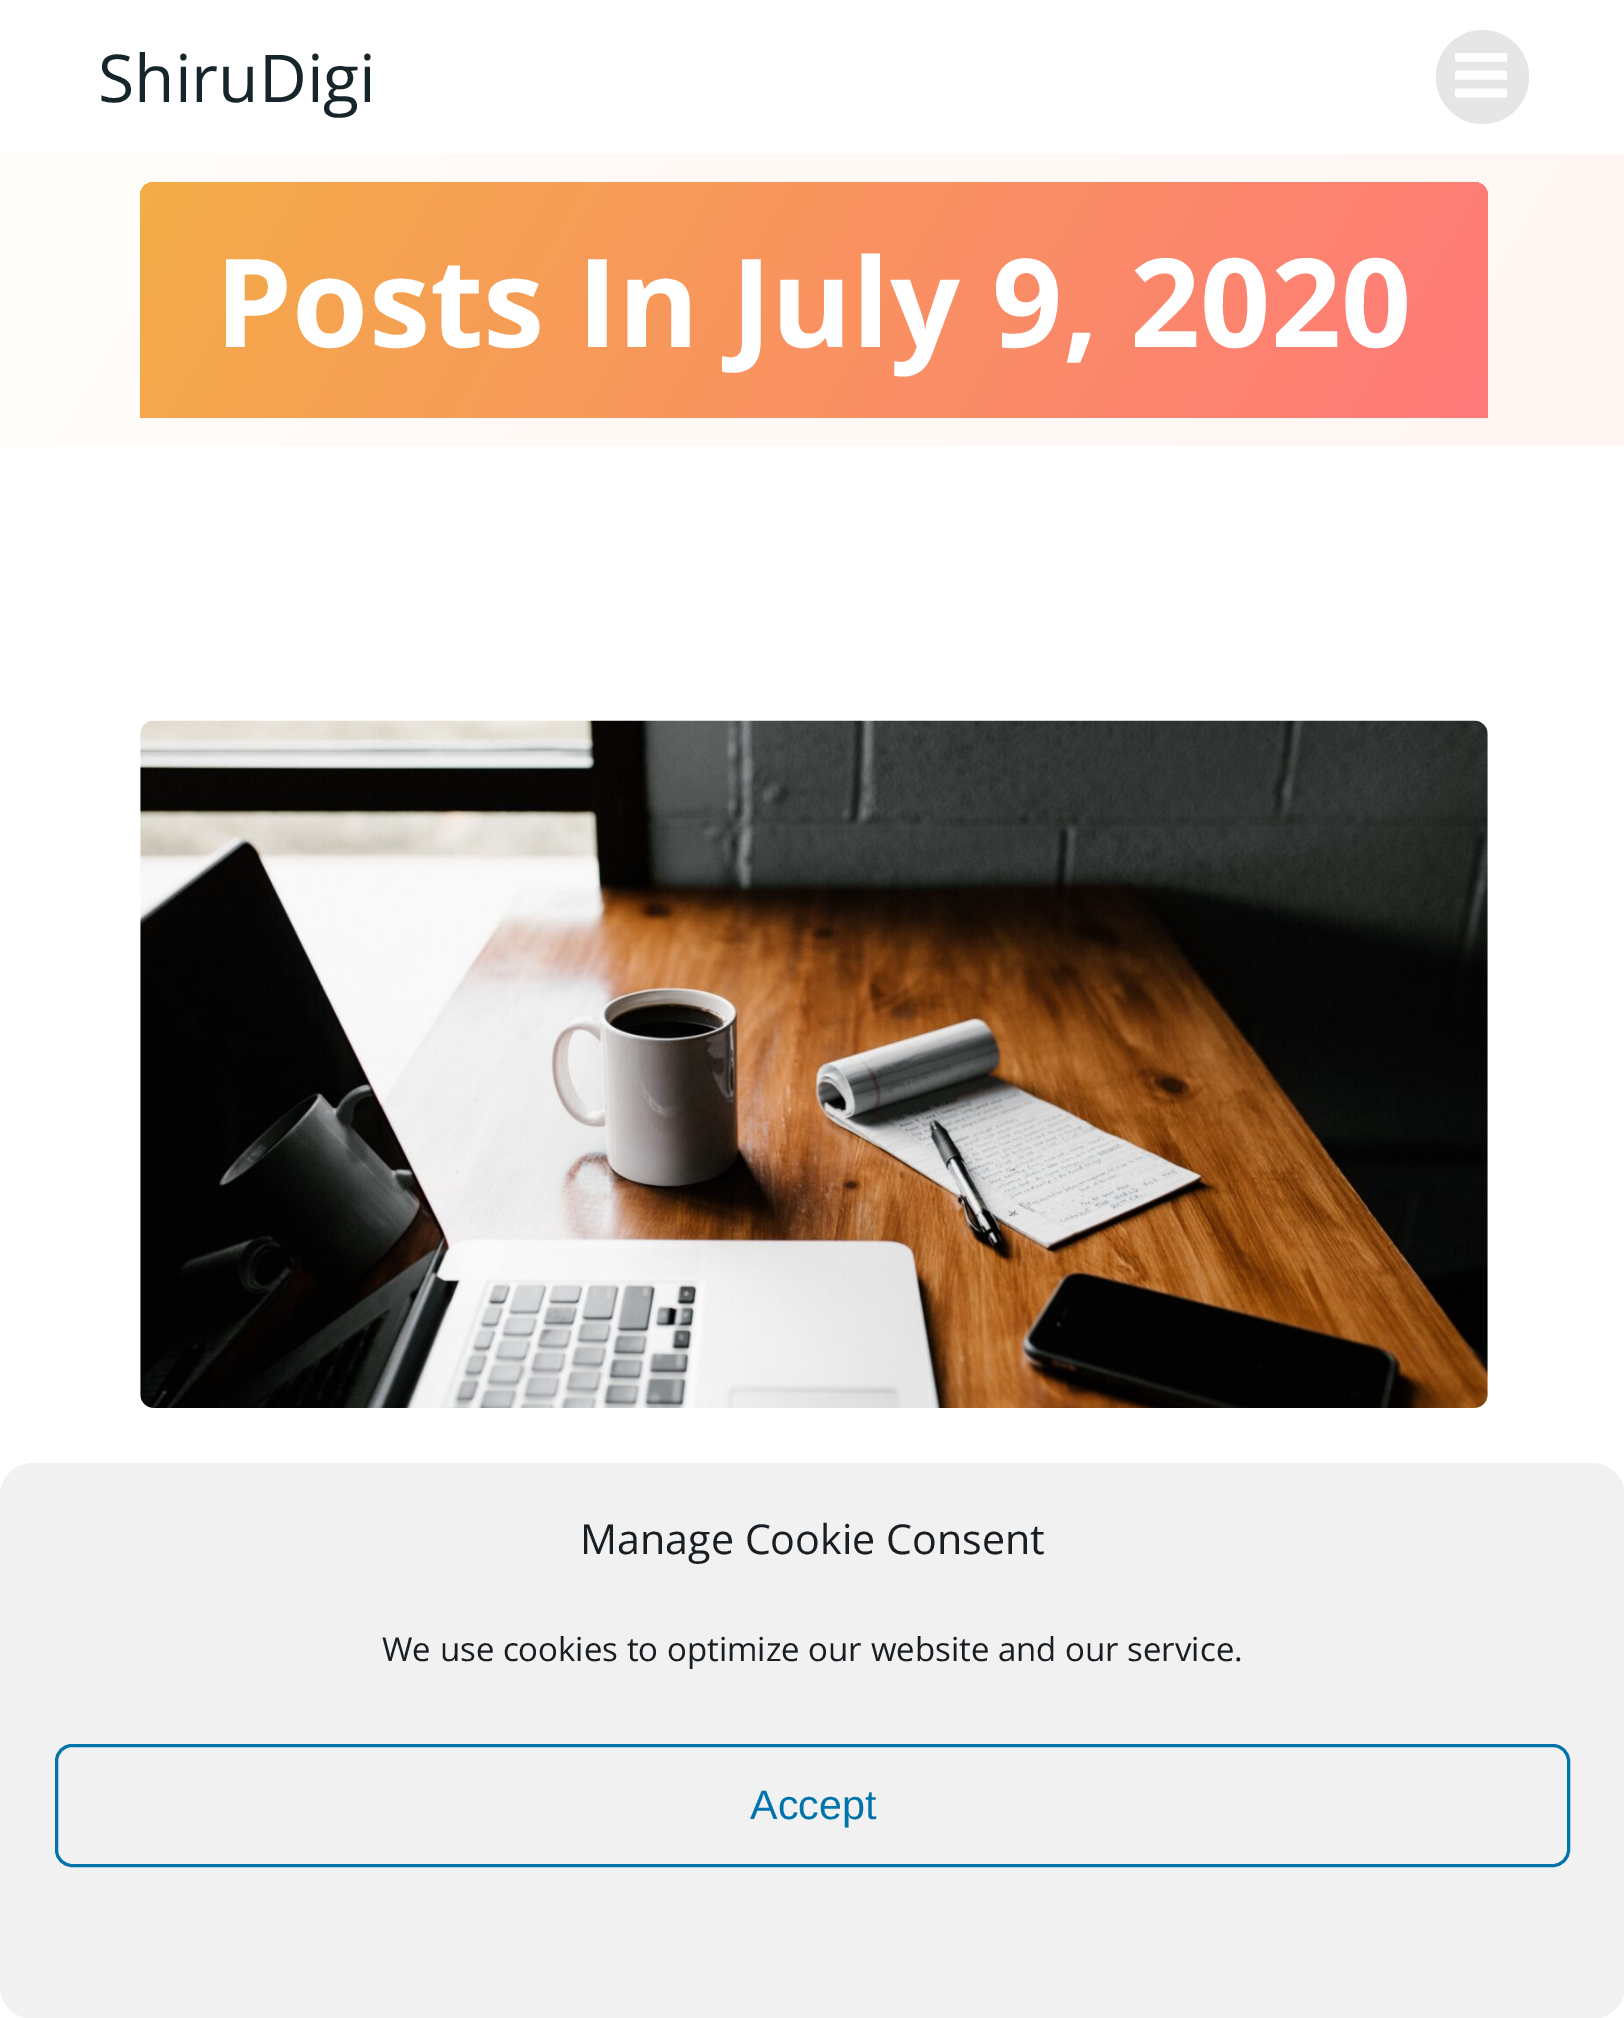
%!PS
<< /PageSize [1624 2018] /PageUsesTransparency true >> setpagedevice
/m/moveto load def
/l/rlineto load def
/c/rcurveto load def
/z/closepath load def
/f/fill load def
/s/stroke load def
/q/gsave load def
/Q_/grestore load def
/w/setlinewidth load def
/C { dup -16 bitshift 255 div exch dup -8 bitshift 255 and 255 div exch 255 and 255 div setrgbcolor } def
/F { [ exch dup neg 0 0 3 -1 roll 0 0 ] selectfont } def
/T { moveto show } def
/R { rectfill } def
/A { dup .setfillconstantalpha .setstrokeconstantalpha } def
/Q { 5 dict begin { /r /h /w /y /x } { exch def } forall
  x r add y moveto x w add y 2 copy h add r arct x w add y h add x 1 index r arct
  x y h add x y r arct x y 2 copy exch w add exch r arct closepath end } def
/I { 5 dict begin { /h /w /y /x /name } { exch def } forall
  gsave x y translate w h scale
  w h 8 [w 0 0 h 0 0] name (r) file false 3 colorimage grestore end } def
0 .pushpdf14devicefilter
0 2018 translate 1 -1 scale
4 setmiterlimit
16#FFFFFF C
0 0 1624 2018 R
/OpenSans-Regular 66 F
16#16252A C
(ShiruDigi) 98 102 T
16#E6E6E6 C
1436 30 93 94 46.5 Q f
(1.rgb) 1455 53 52 45 I
q 0 154 m 1624 0 l 0 292 l -1624 0 l z clip newpath
<< /ShadingType 2 /ColorSpace /DeviceRGB /Coords [107 -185 1519 630] /Extend [true true] /Function << /FunctionType 2 /Domain [0 1] /C0 [1 .992 .98] /C1 [1 .965 .953] /N 1 >> >> shfill Q_
16#FFFFFF C
154 182 m 1320 0 l 7.5 0 14 6.5 14 14 c 0 222 l -1348 0 l 0 -222 l 0 -7.5 6.5 -14 14 -14 c z f
0.8 A
q 154 182 m 1320 0 l 7.5 0 14 6.5 14 14 c 0 222 l -1348 0 l 0 -222 l 0 -7.5 6.5 -14 14 -14 c z clip newpath
<< /ShadingType 2 /ColorSpace /DeviceRGB /Coords [1373 622 255 -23] /Extend [true true] /Function << /FunctionType 2 /Domain [0 1] /C0 [1 .345 .345] /C1 [.941 .596 .098] /N 1 >> >> shfill Q_
/OpenSans-Bold 123.25 F
1 A
(Posts In July 9, 2020) 215 347 T
(2.rgb) 140 720 1348 688 I
16#F1F1F1 C
0 1463 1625 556 33 Q f
/OpenSans-Regular 41.25 F
16#191E23 C
(Manage Cookie Consent) 580 1554 T
/OpenSans-Regular 33 F
(We use cookies to optimize our website and our service.) 382 1661 T
16#0073AA C
3 w
56.5 1745.5 1512 120 15.5 Q s
/LiberationSans-Regular 41.25 F
(Accept) 750 1819 T
.poppdf14devicefilter showpage
